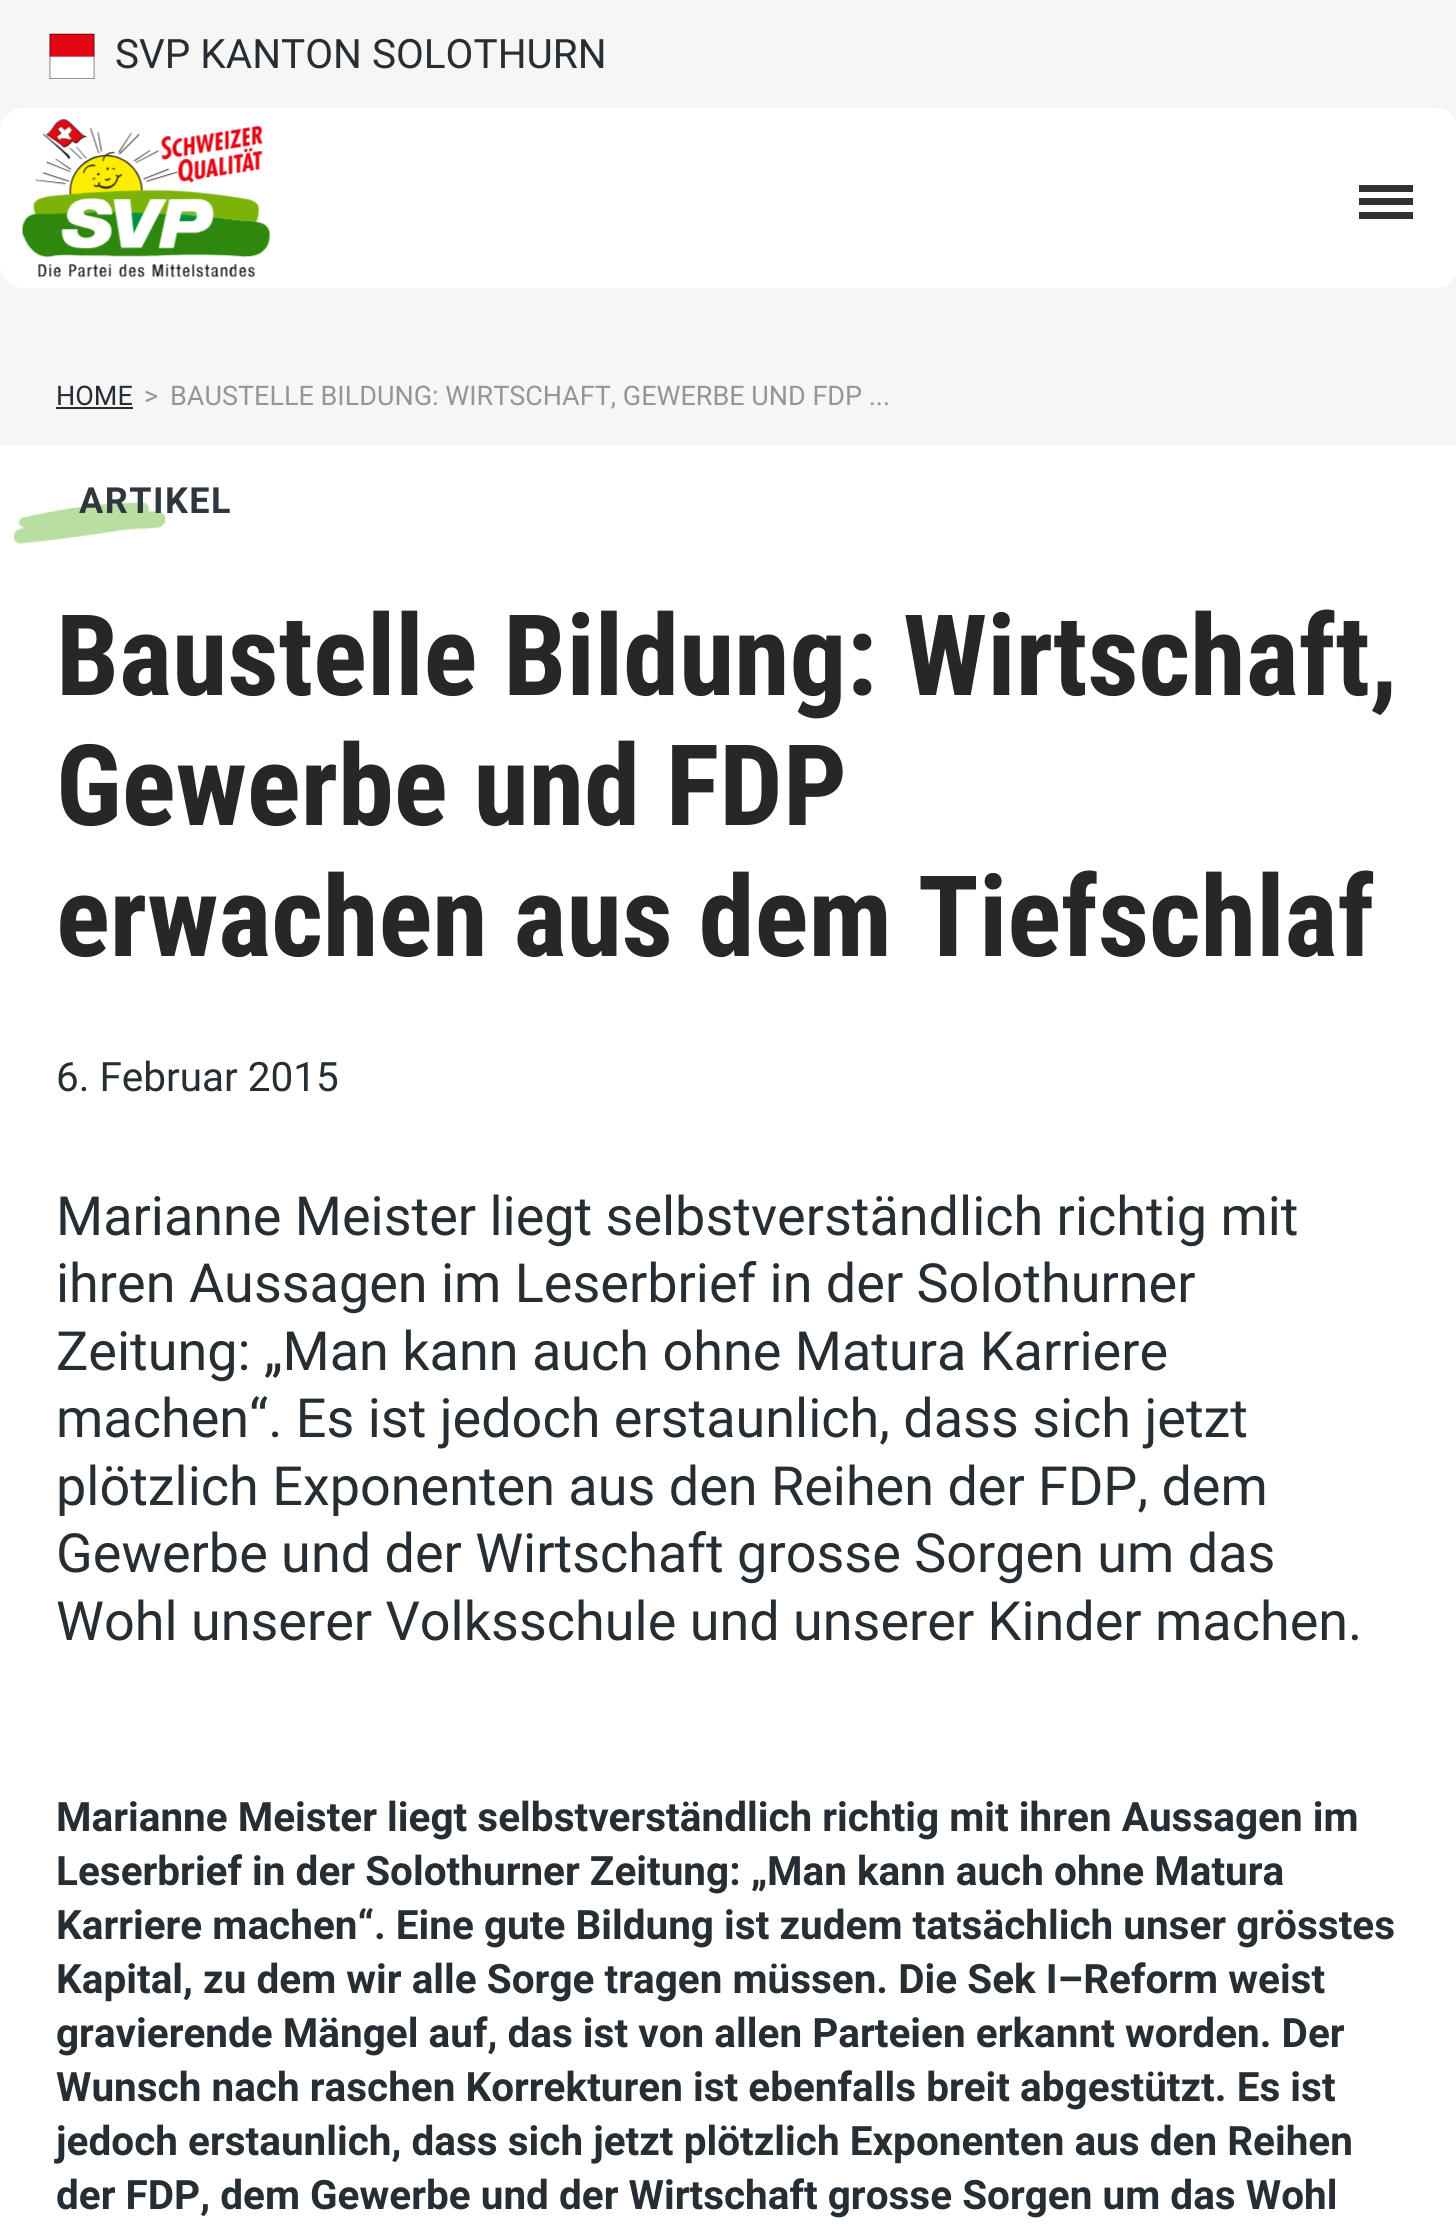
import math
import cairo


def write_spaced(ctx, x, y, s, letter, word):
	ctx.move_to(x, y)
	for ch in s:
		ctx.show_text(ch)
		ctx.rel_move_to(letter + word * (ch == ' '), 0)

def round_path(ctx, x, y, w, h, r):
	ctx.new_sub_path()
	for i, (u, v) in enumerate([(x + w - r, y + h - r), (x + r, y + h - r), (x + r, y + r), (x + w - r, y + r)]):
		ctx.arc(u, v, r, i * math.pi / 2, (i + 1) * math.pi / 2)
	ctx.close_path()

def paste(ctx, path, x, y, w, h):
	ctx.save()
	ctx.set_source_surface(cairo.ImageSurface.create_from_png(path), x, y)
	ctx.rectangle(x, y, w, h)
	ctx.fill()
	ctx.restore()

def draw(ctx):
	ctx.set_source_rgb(0.961, 0.961, 0.961)
	ctx.paint()
	paste(ctx, 'media/1.png', 49, 33, 46, 46)
	ctx.select_font_face('Roboto')
	ctx.set_font_size(40.5)
	ctx.set_source_rgb(0.149, 0.176, 0.2)
	ctx.move_to(115, 68)
	ctx.show_text('SVP KANTON SOLOTHURN')
	ctx.set_source_rgb(1, 1, 1)
	round_path(ctx, 0, 108, 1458, 180, 23)
	ctx.fill()
	paste(ctx, 'media/2.png', 22, 119, 249, 159)
	ctx.set_source_rgb(0.18, 0.196, 0.2)
	ctx.rectangle(1359, 198, 54, 7)
	ctx.rectangle(1359, 185, 54, 7)
	ctx.rectangle(1359, 212, 54, 7)
	ctx.fill()
	ctx.set_font_size(27)
	ctx.set_source_rgb(0.149, 0.176, 0.2)
	ctx.move_to(56, 405)
	ctx.show_text('HOME')
	ctx.rectangle(56, 407, 77, 2)
	ctx.fill()
	ctx.set_source_rgb(0.576, 0.588, 0.6)
	ctx.move_to(144, 405)
	ctx.show_text('>')
	ctx.move_to(170, 405)
	ctx.show_text('BAUSTELLE BILDUNG: WIRTSCHAFT, GEWERBE UND FDP ...')
	ctx.set_source_rgb(1, 1, 1)
	ctx.rectangle(0, 446, 1456, 1794)
	ctx.fill()
	paste(ctx, 'media/3.png', 13, 502, 153, 42)
	ctx.select_font_face('Roboto', cairo.FONT_SLANT_NORMAL, cairo.FONT_WEIGHT_BOLD)
	ctx.set_font_size(36)
	ctx.set_source_rgb(0.188, 0.212, 0.239)
	write_spaced(ctx, 79, 513, 'ARTIKEL', 1.5, 0)
	ctx.select_font_face('Roboto Condensed', cairo.FONT_SLANT_NORMAL, cairo.FONT_WEIGHT_BOLD)
	ctx.set_font_size(112.5)
	ctx.set_source_rgb(0.153, 0.153, 0.153)
	for x, y, s in [
		(56, 695, 'Baustelle Bildung: Wirtschaft,'),
		(56, 825, 'Gewerbe und FDP'),
		(56, 956, 'erwachen aus dem Tiefschlaf'),
	]:
		ctx.move_to(x, y)
		ctx.show_text(s)
	ctx.select_font_face('Roboto')
	ctx.set_font_size(40.5)
	ctx.set_source_rgb(0.149, 0.176, 0.2)
	ctx.move_to(56, 1091)
	ctx.show_text('6. Februar 2015')
	ctx.set_font_size(54)
	for x, y, s in [
		(56, 1235, 'Marianne Meister liegt selbstverständlich richtig mit'),
		(56, 1302, 'ihren Aussagen im Leserbrief in der Solothurner'),
		(56, 1370, 'Zeitung: „Man kann auch ohne Matura Karriere'),
		(56, 1437, 'machen“. Es ist jedoch erstaunlich, dass sich jetzt'),
		(56, 1505, 'plötzlich Exponenten aus den Reihen der FDP, dem'),
		(56, 1572, 'Gewerbe und der Wirtschaft grosse Sorgen um das'),
		(56, 1640, 'Wohl unserer Volksschule und unserer Kinder machen.'),
	]:
		ctx.move_to(x, y)
		ctx.show_text(s)
	ctx.select_font_face('Roboto', cairo.FONT_SLANT_NORMAL, cairo.FONT_WEIGHT_BOLD)
	ctx.set_font_size(40.5)
	for x, y, s in [
		(56, 1831, 'Marianne Meister liegt selbstverständlich richtig mit ihren Aussagen im'),
		(56, 1885, 'Leserbrief in der Solothurner Zeitung: „Man kann auch ohne Matura'),
		(56, 1939, 'Karriere machen“. Eine gute Bildung ist zudem tatsächlich unser grösstes'),
		(56, 1993, 'Kapital, zu dem wir alle Sorge tragen müssen. Die Sek I–Reform weist'),
		(56, 2047, 'gravierende Mängel auf, das ist von allen Parteien erkannt worden. Der'),
		(56, 2101, 'Wunsch nach raschen Korrekturen ist ebenfalls breit abgestützt. Es ist'),
		(56, 2155, 'jedoch erstaunlich, dass sich jetzt plötzlich Exponenten aus den Reihen'),
		(56, 2209, 'der FDP, dem Gewerbe und der Wirtschaft grosse Sorgen um das Wohl'),
	]:
		ctx.move_to(x, y)
		ctx.show_text(s)


surface = cairo.ImageSurface(cairo.FORMAT_RGB24, 1456, 2240)
ctx = cairo.Context(surface)
options = cairo.FontOptions()
options.set_hint_metrics(cairo.HINT_METRICS_OFF)
options.set_hint_style(cairo.HINT_STYLE_NONE)
ctx.set_font_options(options)
ctx.set_miter_limit(4)
draw(ctx)
surface.write_to_png('image.png')
